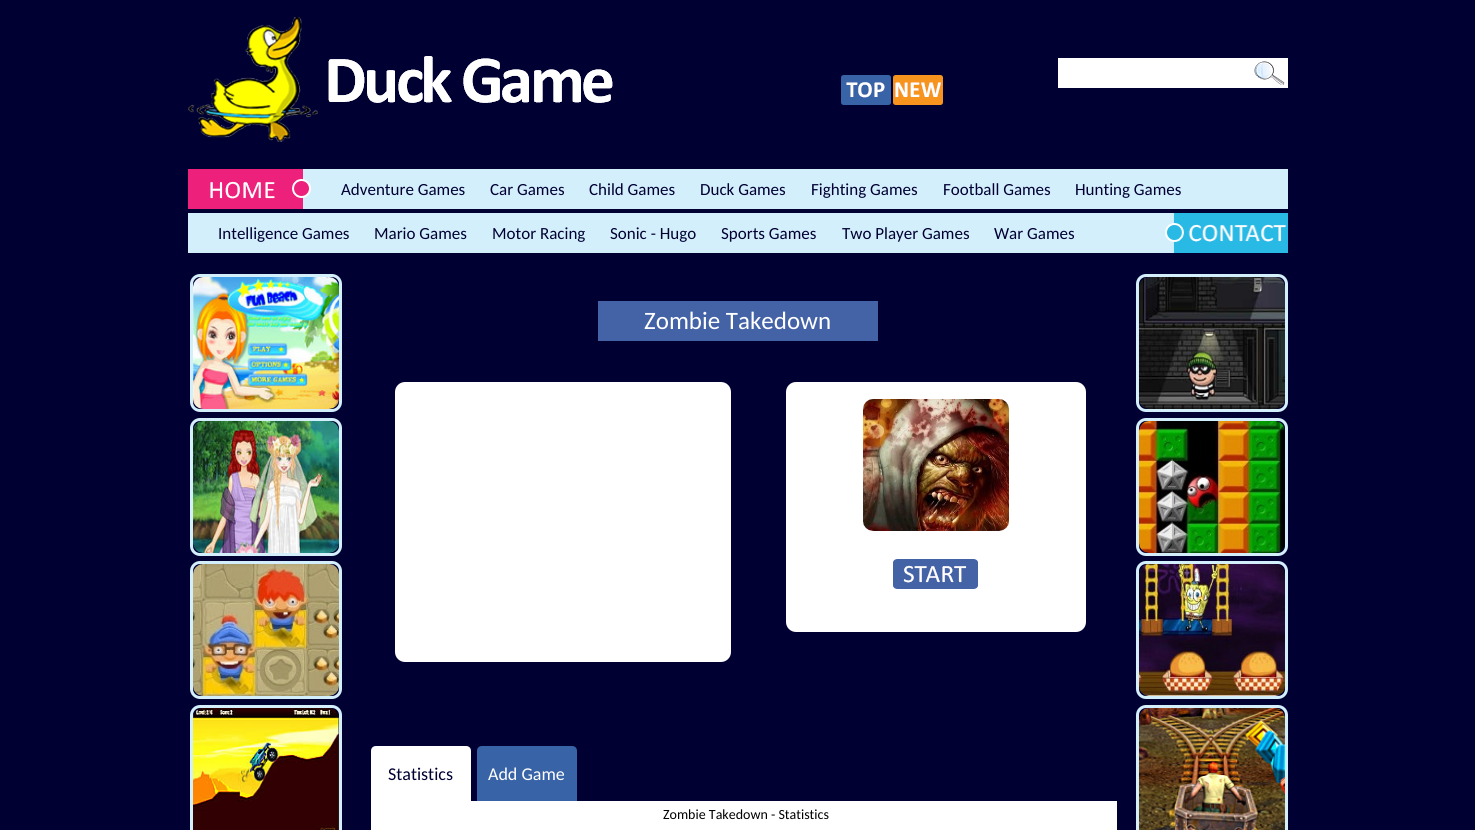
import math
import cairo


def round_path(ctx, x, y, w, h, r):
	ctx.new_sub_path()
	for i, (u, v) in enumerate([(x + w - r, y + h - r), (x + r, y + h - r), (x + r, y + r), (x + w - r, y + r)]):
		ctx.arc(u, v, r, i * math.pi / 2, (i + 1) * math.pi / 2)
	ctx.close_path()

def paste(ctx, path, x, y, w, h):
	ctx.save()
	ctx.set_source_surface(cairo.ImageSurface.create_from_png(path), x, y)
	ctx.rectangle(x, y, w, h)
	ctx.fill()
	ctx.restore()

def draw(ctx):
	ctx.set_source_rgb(0, 0, 0.2)
	ctx.paint()
	paste(ctx, 'media/1.png', 188, 17, 425, 125)
	paste(ctx, 'media/2.png', 188, 17, 425, 125)
	paste(ctx, 'media/3.png', 841, 75, 50, 30)
	paste(ctx, 'media/4.png', 893, 75, 50, 30)
	ctx.set_source_rgb(1, 1, 1)
	ctx.rectangle(1058, 58, 230, 30)
	ctx.fill()
	paste(ctx, 'media/5.png', 1254, 61, 31, 24)
	ctx.set_source_rgb(0.831, 0.937, 0.988)
	ctx.rectangle(303, 169, 985, 40)
	ctx.fill()
	paste(ctx, 'media/6.png', 188, 169, 123, 40)
	ctx.select_font_face('Carlito')
	ctx.set_font_size(17)
	ctx.set_source_rgb(0, 0, 0.2)
	for x, y, s in [
		(341, 195, 'Adventure Games'),
		(490, 195, 'Car Games'),
		(589, 195, 'Child Games'),
		(700, 195, 'Duck Games'),
		(811, 195, 'Fighting Games'),
		(943, 195, 'Football Games'),
		(1075, 195, 'Hunting Games'),
	]:
		ctx.move_to(x, y)
		ctx.show_text(s)
	ctx.set_source_rgb(0.831, 0.937, 0.988)
	ctx.rectangle(188, 213, 986, 40)
	ctx.fill()
	ctx.set_source_rgb(0, 0, 0.2)
	for x, y, s in [
		(218, 239, 'Intelligence Games'),
		(374, 239, 'Mario Games'),
		(492, 239, 'Motor Racing'),
		(610, 239, 'Sonic - Hugo'),
		(721, 239, 'Sports Games'),
		(842, 239, 'Two Player Games'),
		(994, 239, 'War Games'),
	]:
		ctx.move_to(x, y)
		ctx.show_text(s)
	paste(ctx, 'media/7.png', 1165, 213, 123, 40)
	round_path(ctx, 191.5, 275.5, 149, 135, 8.5)
	ctx.set_source_rgb(0.831, 0.937, 0.988)
	ctx.set_line_width(3)
	ctx.stroke()
	paste(ctx, 'media/8.png', 193, 277, 146, 132)
	round_path(ctx, 191.5, 419.5, 149, 135, 8.5)
	ctx.stroke()
	paste(ctx, 'media/9.png', 193, 421, 146, 132)
	round_path(ctx, 191.5, 562.5, 149, 135, 8.5)
	ctx.stroke()
	paste(ctx, 'media/10.png', 193, 564, 146, 132)
	round_path(ctx, 191.5, 706.5, 149, 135, 8.5)
	ctx.stroke()
	paste(ctx, 'media/11.png', 193, 708, 146, 122)
	ctx.set_source_rgb(0.267, 0.388, 0.655)
	ctx.rectangle(598, 301, 280, 40)
	ctx.fill()
	ctx.set_font_size(25)
	ctx.set_source_rgb(1, 1, 1)
	ctx.move_to(644, 329)
	ctx.show_text('Zombie Takedown')
	round_path(ctx, 395, 382, 336, 280, 10)
	ctx.fill()
	round_path(ctx, 786, 382, 300, 250, 10)
	ctx.fill()
	paste(ctx, 'media/12.png', 863, 399, 146, 132)
	paste(ctx, 'media/13.png', 893, 559, 85, 30)
	ctx.new_path()
	ctx.move_to(376, 746)
	ctx.line_to(466, 746)
	ctx.curve_to(469, 746, 471, 748, 471, 751)
	ctx.line_to(471, 801)
	ctx.line_to(371, 801)
	ctx.line_to(371, 751)
	ctx.curve_to(371, 748, 373, 746, 376, 746)
	ctx.close_path()
	ctx.fill()
	ctx.set_font_size(18)
	ctx.set_source_rgb(0, 0, 0.2)
	ctx.move_to(388, 780)
	ctx.show_text('Statistics')
	ctx.set_source_rgb(0.224, 0.388, 0.655)
	ctx.new_path()
	ctx.move_to(482, 746)
	ctx.line_to(572, 746)
	ctx.curve_to(575, 746, 577, 748, 577, 751)
	ctx.line_to(577, 801)
	ctx.line_to(477, 801)
	ctx.line_to(477, 751)
	ctx.curve_to(477, 748, 479, 746, 482, 746)
	ctx.close_path()
	ctx.fill()
	ctx.set_source_rgb(1, 1, 1)
	ctx.move_to(488, 780)
	ctx.show_text('Add Game')
	ctx.rectangle(371, 801, 746, 29)
	ctx.fill()
	ctx.set_font_size(14)
	ctx.set_source_rgb(0, 0, 0)
	ctx.move_to(663, 819)
	ctx.show_text('Zombie Takedown - Statistics')
	round_path(ctx, 1137.5, 275.5, 149, 135, 8.5)
	ctx.set_source_rgb(0.831, 0.937, 0.988)
	ctx.stroke()
	paste(ctx, 'media/14.png', 1139, 277, 146, 132)
	round_path(ctx, 1137.5, 419.5, 149, 135, 8.5)
	ctx.stroke()
	paste(ctx, 'media/15.png', 1139, 421, 146, 132)
	round_path(ctx, 1137.5, 562.5, 149, 135, 8.5)
	ctx.stroke()
	paste(ctx, 'media/16.png', 1139, 564, 146, 132)
	round_path(ctx, 1137.5, 706.5, 149, 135, 8.5)
	ctx.stroke()
	paste(ctx, 'media/17.png', 1139, 708, 146, 122)


surface = cairo.ImageSurface(cairo.FORMAT_RGB24, 1475, 830)
ctx = cairo.Context(surface)
options = cairo.FontOptions()
options.set_hint_metrics(cairo.HINT_METRICS_OFF)
options.set_hint_style(cairo.HINT_STYLE_NONE)
ctx.set_font_options(options)
ctx.set_miter_limit(4)
draw(ctx)
surface.write_to_png('image.png')
